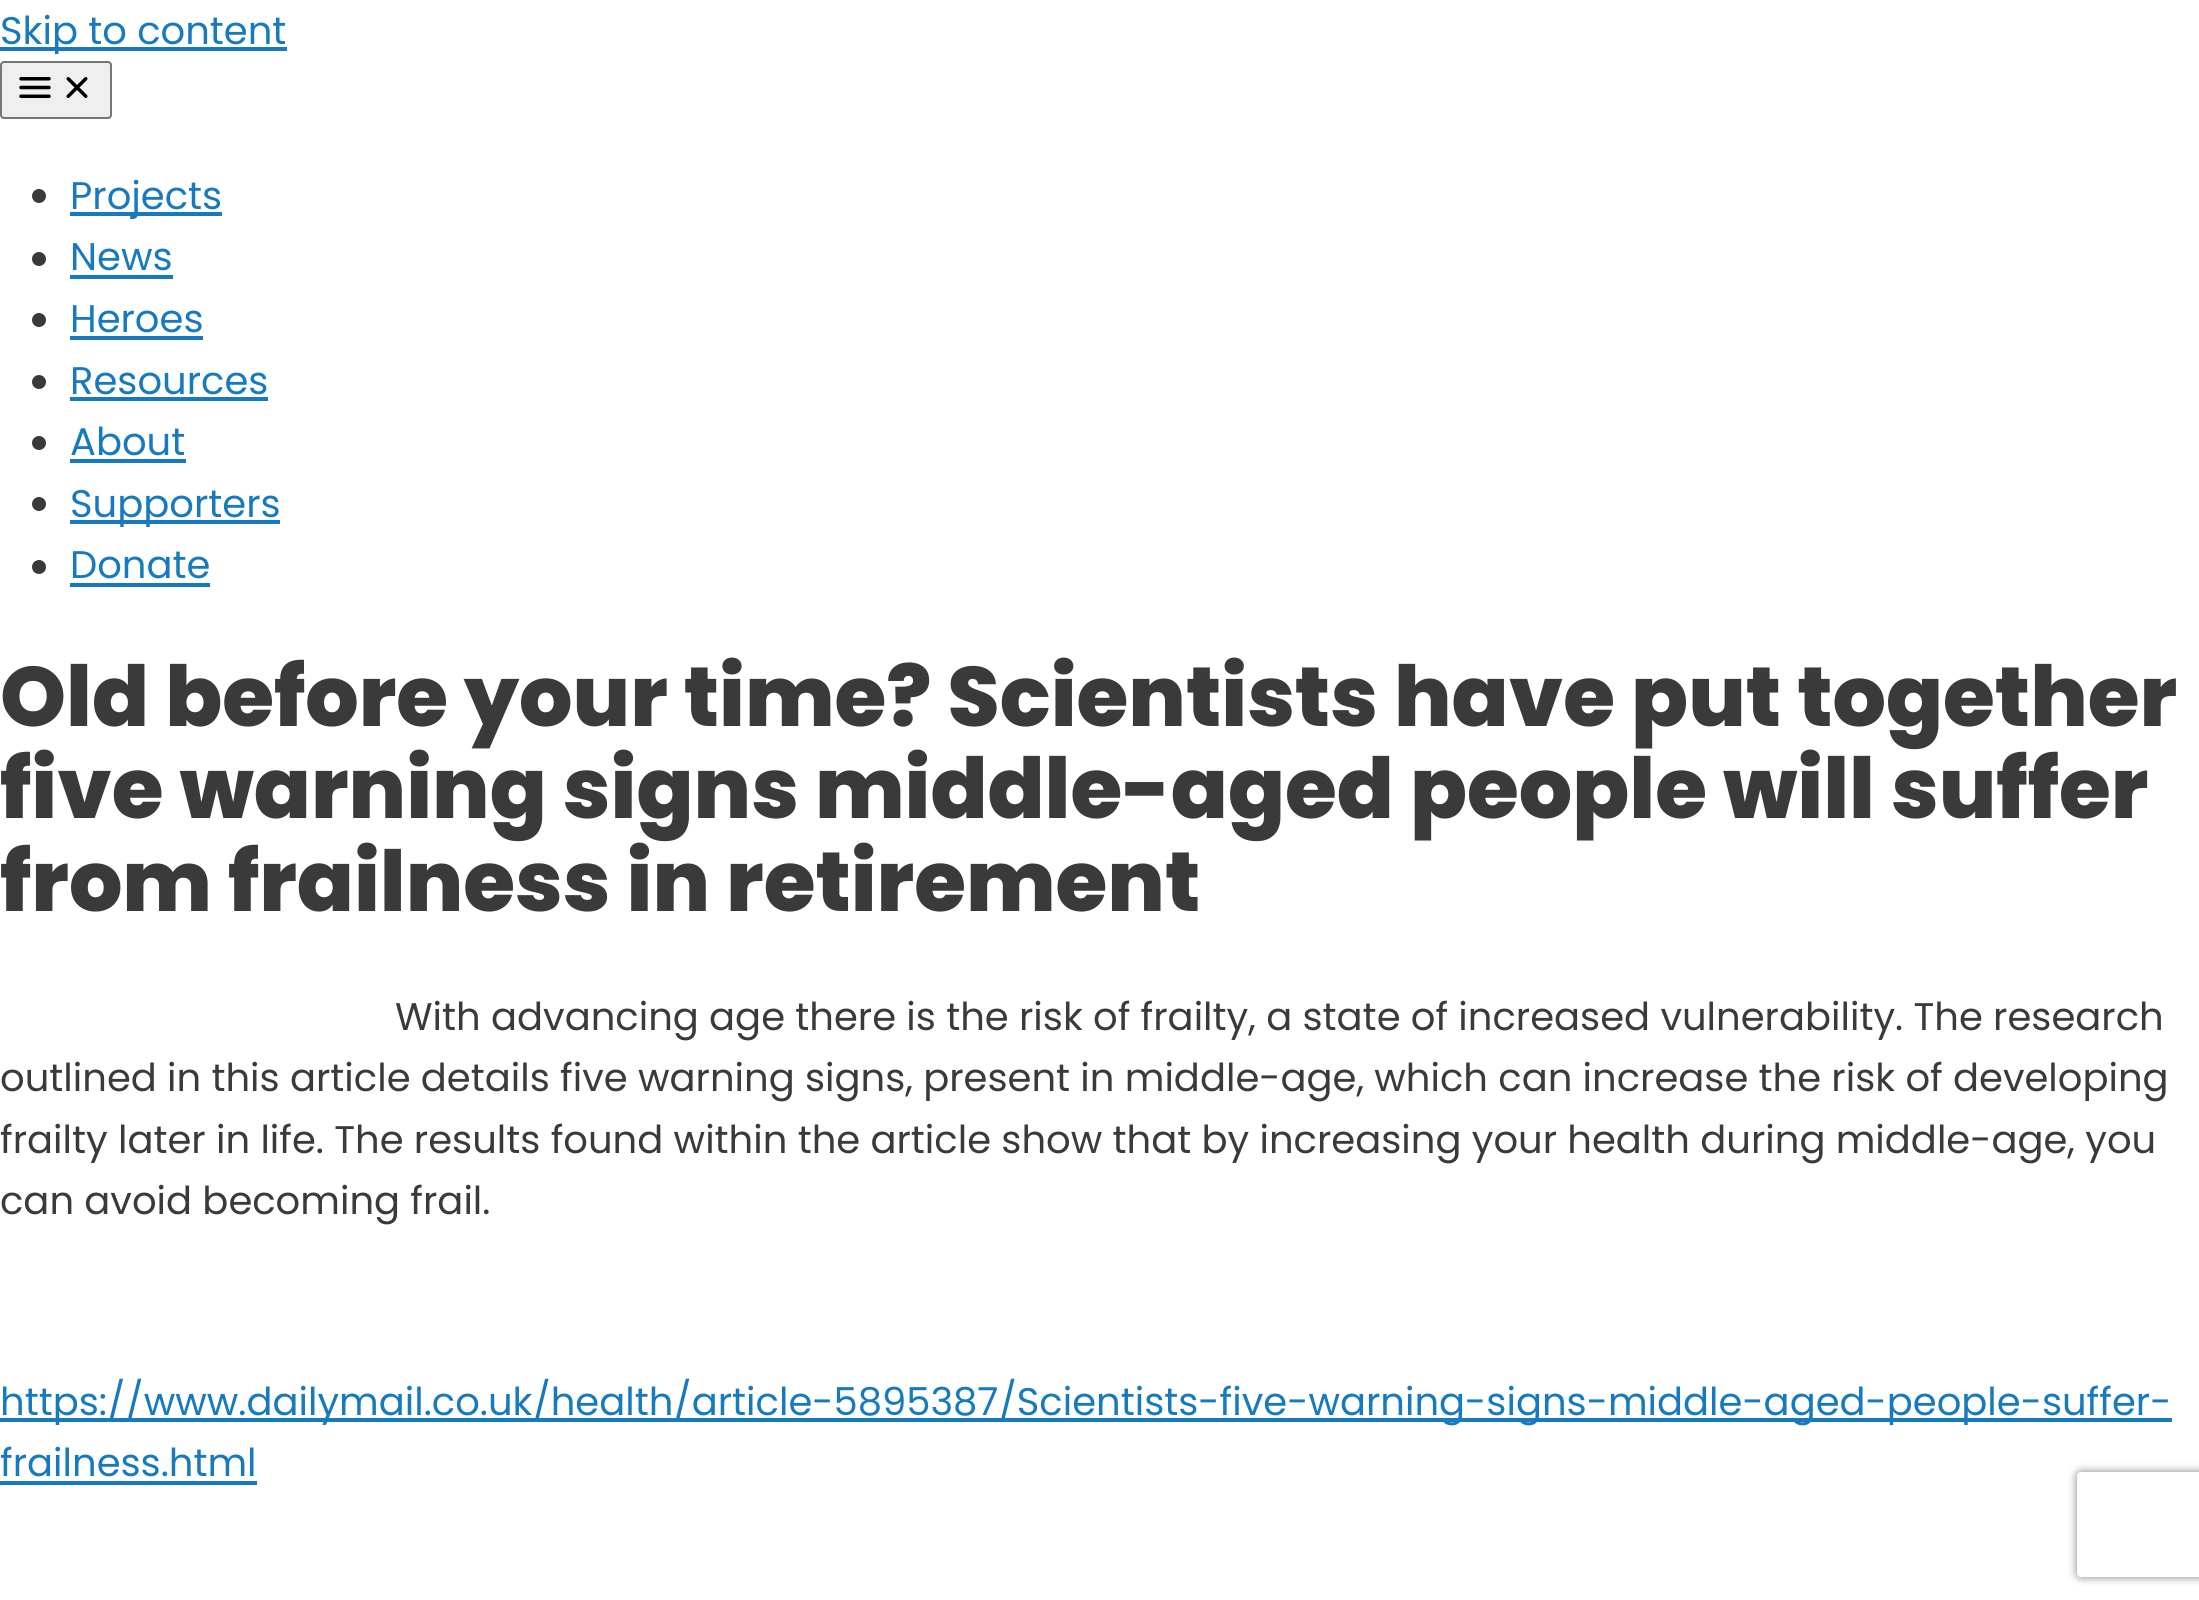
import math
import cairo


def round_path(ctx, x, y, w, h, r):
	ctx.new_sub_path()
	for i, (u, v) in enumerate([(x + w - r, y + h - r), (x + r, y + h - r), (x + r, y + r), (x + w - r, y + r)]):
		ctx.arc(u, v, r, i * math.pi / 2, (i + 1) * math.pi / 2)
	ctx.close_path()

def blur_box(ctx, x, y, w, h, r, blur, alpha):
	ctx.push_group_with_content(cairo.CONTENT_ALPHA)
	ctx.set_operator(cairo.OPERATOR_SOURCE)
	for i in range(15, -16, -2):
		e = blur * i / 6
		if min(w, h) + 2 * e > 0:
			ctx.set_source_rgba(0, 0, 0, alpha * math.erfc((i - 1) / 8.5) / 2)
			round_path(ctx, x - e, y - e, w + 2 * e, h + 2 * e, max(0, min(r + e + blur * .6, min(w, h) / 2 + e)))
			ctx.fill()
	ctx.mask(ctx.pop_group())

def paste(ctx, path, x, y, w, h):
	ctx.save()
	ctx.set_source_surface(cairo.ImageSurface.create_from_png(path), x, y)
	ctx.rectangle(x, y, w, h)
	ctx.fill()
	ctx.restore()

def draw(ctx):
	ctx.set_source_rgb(1, 1, 1)
	ctx.paint()
	ctx.set_source_rgb(0.09, 0.478, 0.745)
	ctx.rectangle(0, 47, 287, 4)
	ctx.fill()
	ctx.select_font_face('Poppins')
	ctx.set_font_size(38.5)
	ctx.move_to(0, 44)
	ctx.show_text('Skip to content')
	ctx.set_source_rgb(0.937, 0.937, 0.937)
	round_path(ctx, 1, 62, 110, 56, 3)
	ctx.fill_preserve()
	ctx.set_source_rgb(0.463, 0.463, 0.463)
	ctx.stroke()
	paste(ctx, 'media/1.png', 19, 77, 32, 21)
	paste(ctx, 'media/2.png', 66, 77, 22, 21)
	ctx.set_source_rgb(0.227, 0.227, 0.227)
	ctx.arc(39, 196, 7, 0, 2 * math.pi)
	ctx.fill()
	ctx.set_source_rgb(0.09, 0.478, 0.745)
	ctx.rectangle(70, 212, 152, 4)
	ctx.fill()
	ctx.move_to(70, 209)
	ctx.show_text('Projects')
	ctx.set_source_rgb(0.227, 0.227, 0.227)
	ctx.new_path()
	ctx.arc(39, 259, 7, 0, 2 * math.pi)
	ctx.fill()
	ctx.set_source_rgb(0.09, 0.478, 0.745)
	ctx.move_to(70, 270)
	ctx.show_text('News')
	ctx.rectangle(70, 275, 103, 4)
	ctx.fill()
	ctx.set_source_rgb(0.227, 0.227, 0.227)
	ctx.arc(39, 320, 7, 0, 2 * math.pi)
	ctx.fill()
	ctx.set_source_rgb(0.09, 0.478, 0.745)
	ctx.move_to(70, 332)
	ctx.show_text('Heroes')
	ctx.rectangle(70, 336, 133, 4)
	ctx.fill()
	ctx.set_source_rgb(0.227, 0.227, 0.227)
	ctx.arc(39, 382, 7, 0, 2 * math.pi)
	ctx.fill()
	ctx.set_source_rgb(0.09, 0.478, 0.745)
	ctx.move_to(70, 394)
	ctx.show_text('Resources')
	ctx.rectangle(70, 397, 198, 4)
	ctx.fill()
	ctx.set_source_rgb(0.227, 0.227, 0.227)
	ctx.arc(39, 443, 7, 0, 2 * math.pi)
	ctx.fill()
	ctx.set_source_rgb(0.09, 0.478, 0.745)
	ctx.move_to(70, 455)
	ctx.show_text('About')
	ctx.rectangle(70, 459, 116, 4)
	ctx.fill()
	ctx.set_source_rgb(0.227, 0.227, 0.227)
	ctx.arc(39, 504, 7, 0, 2 * math.pi)
	ctx.fill()
	ctx.set_source_rgb(0.09, 0.478, 0.745)
	ctx.rectangle(70, 520, 210, 4)
	ctx.fill()
	ctx.move_to(70, 517)
	ctx.show_text('Supporters')
	ctx.set_source_rgb(0.227, 0.227, 0.227)
	ctx.new_path()
	ctx.arc(39, 567, 7, 0, 2 * math.pi)
	ctx.fill()
	ctx.set_source_rgb(0.09, 0.478, 0.745)
	ctx.move_to(70, 578)
	ctx.show_text('Donate')
	ctx.rectangle(70, 583, 140, 4)
	ctx.fill()
	ctx.select_font_face('Poppins ExtraBold')
	ctx.set_font_size(84)
	ctx.set_source_rgb(0.227, 0.227, 0.227)
	for x, y, s in [
		(0, 726, 'Old before your time? Scientists have put together'),
		(0, 818, 'five warning signs middle-aged people will suffer'),
		(0, 911, 'from frailness in retirement'),
	]:
		ctx.move_to(x, y)
		ctx.show_text(s)
	ctx.select_font_face('Poppins')
	ctx.set_font_size(38.5)
	for x, y, s in [
		(395, 1030, 'With advancing age there is the risk of frailty, a state of increased vulnerability. The research'),
		(0, 1091, 'outlined in this article details five warning signs, present in middle-age, which can increase the risk of developing'),
		(0, 1153, 'frailty later in life. The results found within the article show that by increasing your health during middle-age, you'),
		(0, 1214, 'can avoid becoming frail.'),
	]:
		ctx.move_to(x, y)
		ctx.show_text(s)
	ctx.set_source_rgb(0.09, 0.478, 0.745)
	ctx.rectangle(0, 1418, 2172, 4)
	ctx.fill()
	ctx.move_to(0, 1415)
	ctx.show_text('https://www.dailymail.co.uk/health/article-5895387/Scientists-five-warning-signs-middle-aged-people-suffer-')
	ctx.move_to(0, 1476)
	ctx.show_text('frailness.html')
	ctx.rectangle(0, 1481, 257, 4)
	ctx.fill()
	ctx.save()
	ctx.set_fill_rule(cairo.FILL_RULE_EVEN_ODD)
	ctx.new_path()
	ctx.move_to(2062, 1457)
	ctx.line_to(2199, 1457)
	ctx.line_to(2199, 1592)
	ctx.line_to(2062, 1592)
	ctx.close_path()
	ctx.move_to(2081, 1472)
	ctx.line_to(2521, 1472)
	ctx.curve_to(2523, 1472, 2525, 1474, 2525, 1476)
	ctx.line_to(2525, 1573)
	ctx.curve_to(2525, 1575, 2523, 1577, 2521, 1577)
	ctx.line_to(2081, 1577)
	ctx.curve_to(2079, 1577, 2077, 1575, 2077, 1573)
	ctx.line_to(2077, 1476)
	ctx.curve_to(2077, 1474, 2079, 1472, 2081, 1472)
	ctx.close_path()
	ctx.clip()
	ctx.set_source_rgb(0.502, 0.502, 0.502)
	blur_box(ctx, 2077, 1472, 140, 105, 4, 4.5, 1)
	ctx.restore()


surface = cairo.ImageSurface(cairo.FORMAT_RGB24, 2199, 1600)
ctx = cairo.Context(surface)
options = cairo.FontOptions()
options.set_hint_metrics(cairo.HINT_METRICS_OFF)
options.set_hint_style(cairo.HINT_STYLE_NONE)
ctx.set_font_options(options)
ctx.set_miter_limit(4)
draw(ctx)
surface.write_to_png('image.png')
